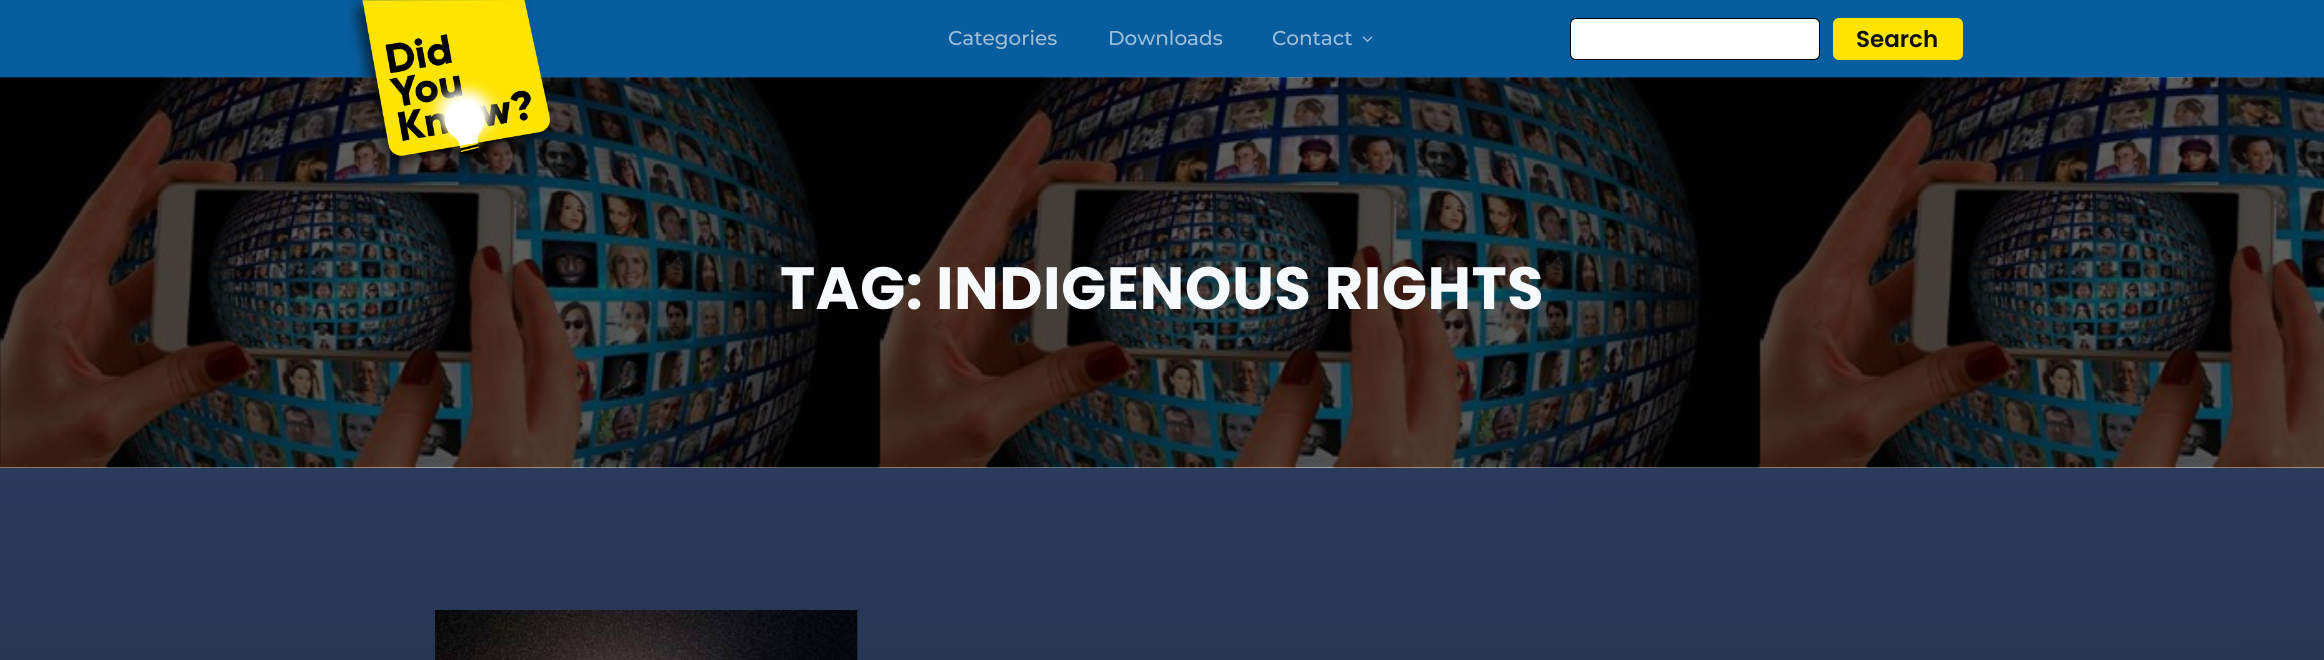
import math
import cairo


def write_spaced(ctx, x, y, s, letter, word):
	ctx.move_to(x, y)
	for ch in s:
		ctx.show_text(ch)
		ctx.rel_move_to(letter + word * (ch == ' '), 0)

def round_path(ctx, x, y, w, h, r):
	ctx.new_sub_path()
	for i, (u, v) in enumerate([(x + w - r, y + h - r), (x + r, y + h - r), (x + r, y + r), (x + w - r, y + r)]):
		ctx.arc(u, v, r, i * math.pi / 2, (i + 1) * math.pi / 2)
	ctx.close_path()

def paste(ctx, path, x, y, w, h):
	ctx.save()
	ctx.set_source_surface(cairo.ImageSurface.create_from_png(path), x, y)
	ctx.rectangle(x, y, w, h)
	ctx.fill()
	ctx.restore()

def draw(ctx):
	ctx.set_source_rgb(0.988, 0.988, 0.988)
	ctx.paint()
	ctx.set_source_rgb(0.035, 0.365, 0.62)
	ctx.rectangle(0, 0, 2324, 78)
	ctx.fill()
	paste(ctx, 'media/3.png', 0, 77, 2324, 391)
	paste(ctx, 'media/1.png', 347, 0, 204, 170)
	ctx.select_font_face('Montserrat Medium')
	ctx.set_font_size(20)
	ctx.set_source_rgb(0.616, 0.745, 0.847)
	for x, y, s in [
		(948, 45, 'Categories'),
		(1108, 45, 'Downloads'),
		(1272, 45, 'Contact'),
	]:
		ctx.move_to(x, y)
		ctx.show_text(s)
	paste(ctx, 'media/2.png', 1362, 36, 11, 6)
	ctx.set_source_rgb(1, 1, 1)
	round_path(ctx, 1570.5, 18.5, 249, 41, 5.5)
	ctx.fill_preserve()
	ctx.set_source_rgb(0, 0, 0)
	ctx.set_line_width(1)
	ctx.stroke()
	ctx.set_source_rgb(1, 0.894, 0)
	round_path(ctx, 1833, 18, 130, 42, 6)
	ctx.fill()
	ctx.select_font_face('Poppins SemiBold')
	ctx.set_font_size(23)
	ctx.set_source_rgb(0.067, 0.067, 0.067)
	ctx.move_to(1856, 47)
	ctx.show_text('Search')
	ctx.select_font_face('Poppins', cairo.FONT_SLANT_NORMAL, cairo.FONT_WEIGHT_BOLD)
	ctx.set_font_size(59.6)
	ctx.set_source_rgb(0.965, 0.98, 0.992)
	write_spaced(ctx, 780, 309, 'TAG: INDIGENOUS RIGHTS', 0.4, 0)
	gradient = cairo.LinearGradient(1162, 467, 1163, 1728)
	gradient.add_color_stop_rgba(0, 0.165, 0.231, 0.357, 1)
	gradient.add_color_stop_rgba(1, 0.094, 0.106, 0.145, 1)
	ctx.set_source(gradient)
	ctx.rectangle(0, 468, 2324, 192)
	ctx.fill()
	paste(ctx, 'media/4.png', 435, 610, 423, 50)


surface = cairo.ImageSurface(cairo.FORMAT_RGB24, 2324, 660)
ctx = cairo.Context(surface)
options = cairo.FontOptions()
options.set_hint_metrics(cairo.HINT_METRICS_OFF)
options.set_hint_style(cairo.HINT_STYLE_NONE)
ctx.set_font_options(options)
ctx.set_miter_limit(4)
draw(ctx)
surface.write_to_png('image.png')
